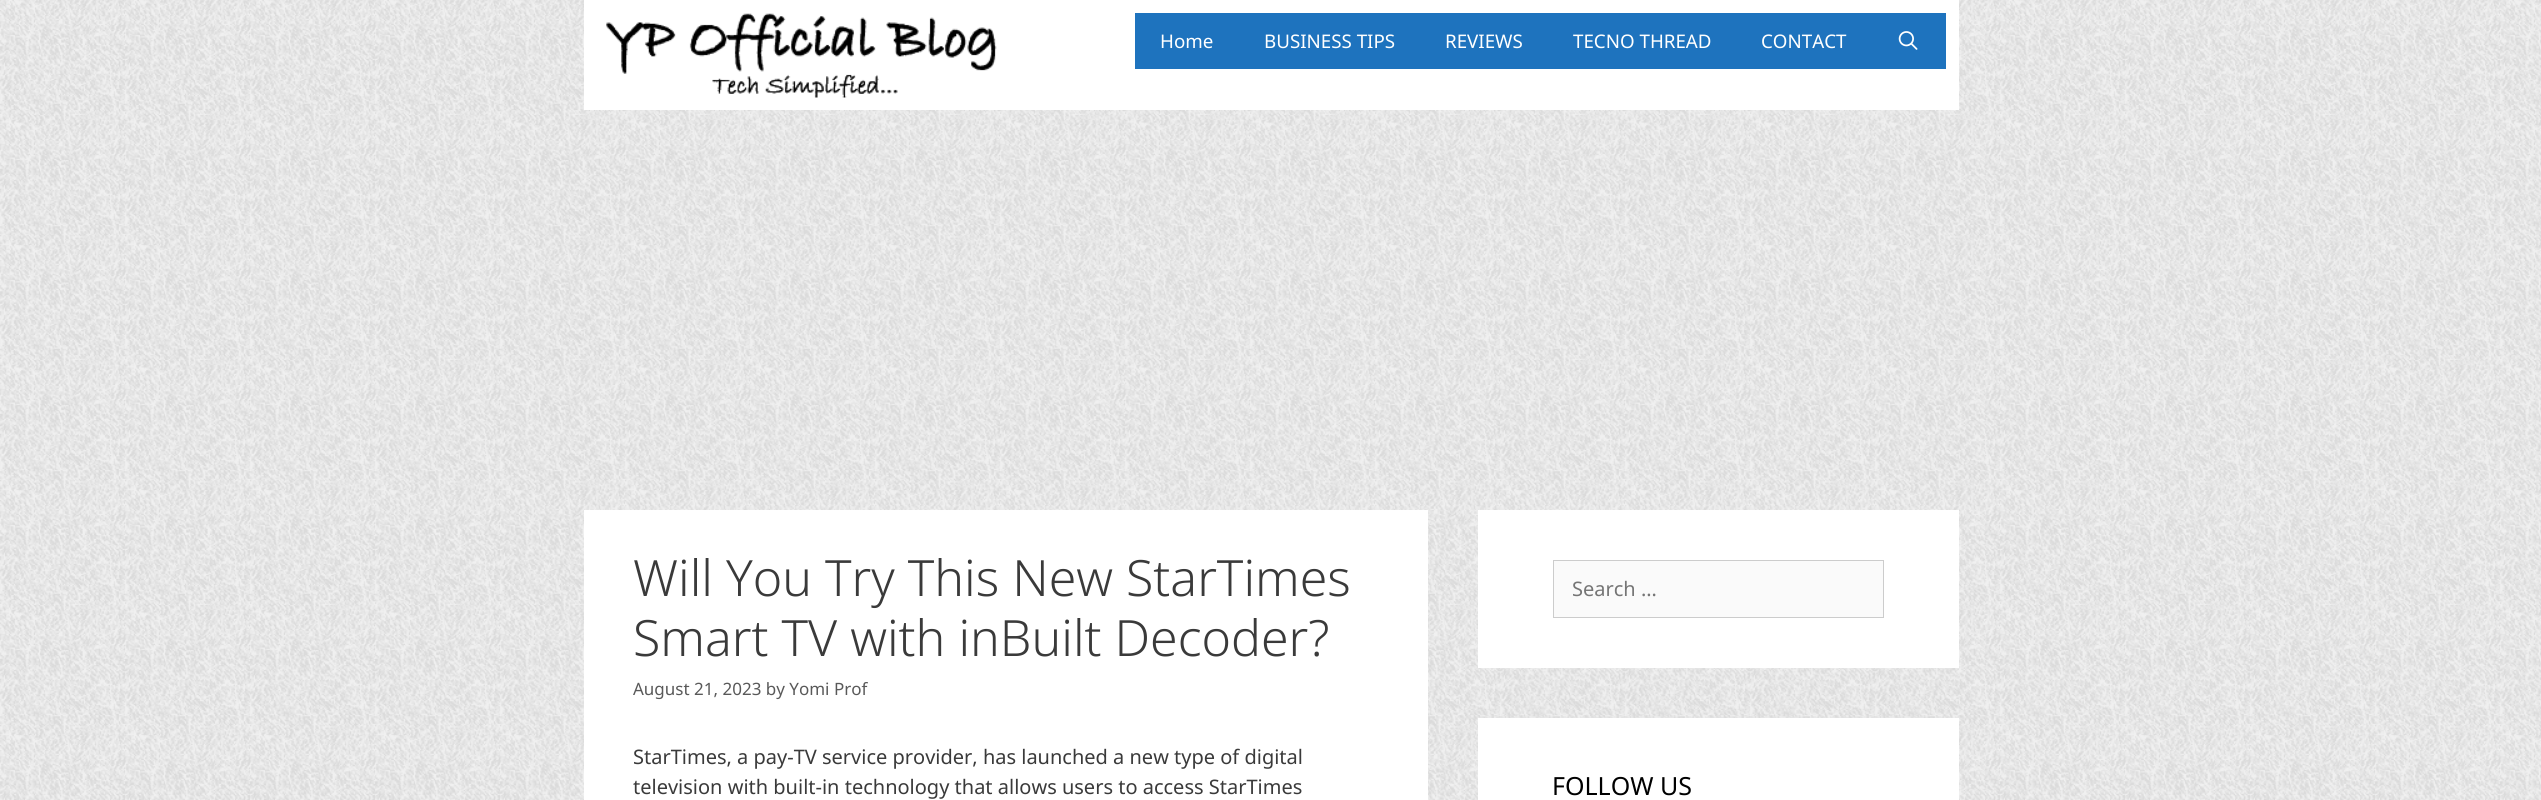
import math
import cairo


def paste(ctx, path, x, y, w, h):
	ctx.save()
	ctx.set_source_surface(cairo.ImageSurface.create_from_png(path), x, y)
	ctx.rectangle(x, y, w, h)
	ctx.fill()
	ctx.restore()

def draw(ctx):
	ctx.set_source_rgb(1, 1, 1)
	ctx.paint()
	paste(ctx, 'media/1.png', 0, 0, 2541, 800)
	ctx.set_source_rgb(1, 1, 1)
	ctx.rectangle(584, 0, 1375, 110)
	ctx.fill()
	paste(ctx, 'media/2.png', 606, 13, 391, 85)
	ctx.set_source_rgb(0.118, 0.451, 0.745)
	ctx.rectangle(1135, 13, 811, 56)
	ctx.fill()
	ctx.select_font_face('Noto Sans')
	ctx.set_font_size(18.75)
	ctx.set_source_rgb(1, 1, 1)
	for x, y, s in [
		(1160, 48, 'Home'),
		(1264, 48, 'BUSINESS TIPS'),
		(1445, 48, 'REVIEWS'),
		(1573, 48, 'TECNO THREAD'),
		(1761, 48, 'CONTACT'),
	]:
		ctx.move_to(x, y)
		ctx.show_text(s)
	paste(ctx, 'media/3.png', 1898, 31, 20, 19)
	ctx.rectangle(584, 510, 844, 290)
	ctx.fill()
	ctx.select_font_face('Noto Sans Light')
	ctx.set_font_size(50)
	ctx.set_source_rgb(0.227, 0.227, 0.227)
	ctx.move_to(633, 596)
	ctx.show_text('Will You Try This New StarTimes')
	ctx.move_to(633, 656)
	ctx.show_text('Smart TV with inBuilt Decoder?')
	ctx.select_font_face('Noto Sans')
	ctx.set_font_size(17)
	ctx.set_source_rgb(0.349, 0.349, 0.349)
	ctx.move_to(633, 695)
	ctx.show_text('August 21, 2023 by Yomi Prof')
	ctx.set_font_size(20)
	ctx.set_source_rgb(0.227, 0.227, 0.227)
	ctx.move_to(633, 764)
	ctx.show_text('StarTimes, a pay-TV service provider, has launched a new type of digital')
	ctx.move_to(633, 794)
	ctx.show_text('television with built-in technology that allows users to access StarTimes')
	ctx.set_source_rgb(1, 1, 1)
	ctx.rectangle(1478, 510, 481, 158)
	ctx.fill()
	ctx.set_source_rgb(0.98, 0.98, 0.98)
	ctx.rectangle(1553.5, 560.5, 330, 57)
	ctx.fill_preserve()
	ctx.set_source_rgb(0.8, 0.8, 0.8)
	ctx.set_line_width(1)
	ctx.stroke()
	ctx.set_source_rgb(0.459, 0.459, 0.459)
	ctx.move_to(1572, 596)
	ctx.show_text('Search …')
	ctx.set_source_rgb(1, 1, 1)
	ctx.rectangle(1478, 718, 481, 82)
	ctx.fill()
	ctx.set_font_size(25)
	ctx.set_source_rgb(0, 0, 0)
	ctx.move_to(1552, 795)
	ctx.show_text('FOLLOW US')


surface = cairo.ImageSurface(cairo.FORMAT_RGB24, 2541, 800)
ctx = cairo.Context(surface)
options = cairo.FontOptions()
options.set_hint_metrics(cairo.HINT_METRICS_OFF)
options.set_hint_style(cairo.HINT_STYLE_NONE)
ctx.set_font_options(options)
ctx.set_miter_limit(4)
draw(ctx)
surface.write_to_png('image.png')
